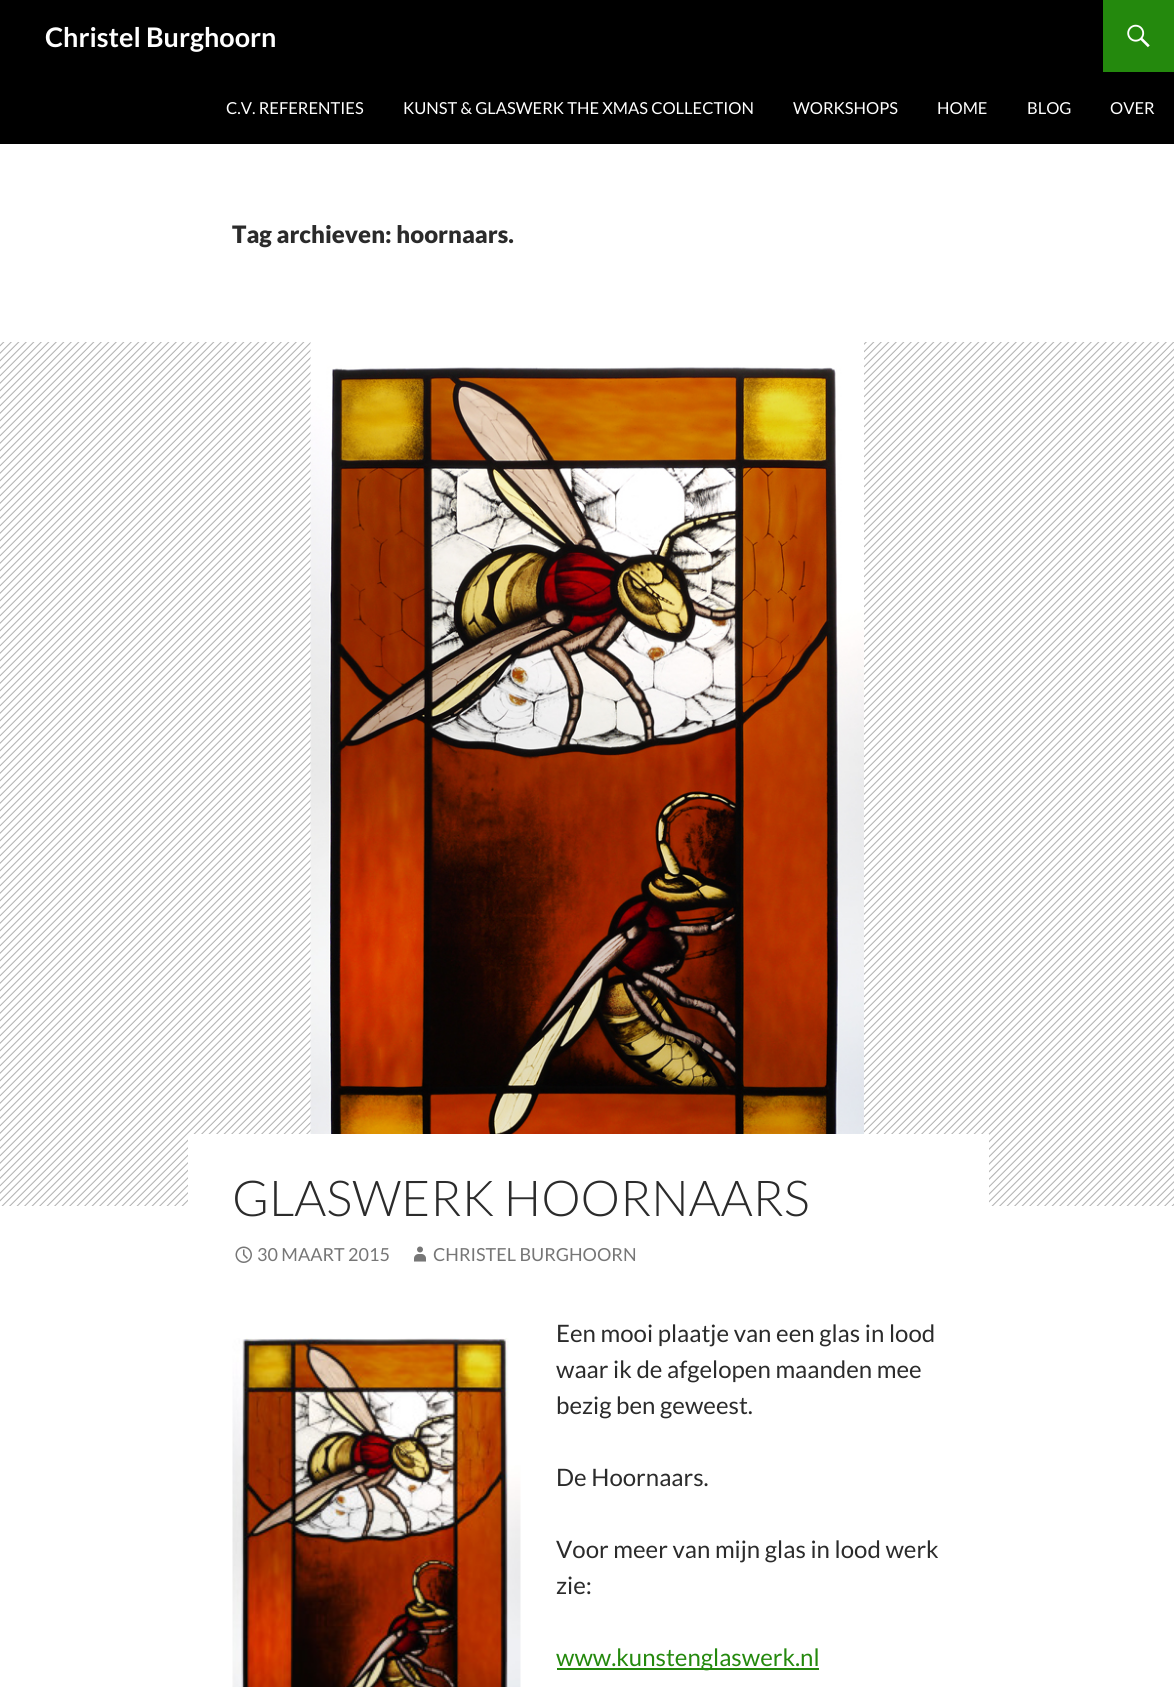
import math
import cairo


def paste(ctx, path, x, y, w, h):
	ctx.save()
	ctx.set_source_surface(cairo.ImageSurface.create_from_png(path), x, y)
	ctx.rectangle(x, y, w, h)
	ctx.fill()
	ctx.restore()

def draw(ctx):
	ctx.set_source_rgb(1, 1, 1)
	ctx.paint()
	ctx.set_source_rgb(0, 0, 0)
	ctx.rectangle(0, 0, 1174, 144)
	ctx.fill()
	ctx.select_font_face('Lato', cairo.FONT_SLANT_NORMAL, cairo.FONT_WEIGHT_BOLD)
	ctx.set_font_size(27)
	ctx.set_source_rgb(1, 1, 1)
	ctx.move_to(45, 47)
	ctx.show_text('Christel Burghoorn')
	ctx.set_source_rgb(0.141, 0.537, 0.051)
	ctx.rectangle(1103, 0, 71, 72)
	ctx.fill()
	paste(ctx, 'media/1.png', 1127, 24, 23, 24)
	ctx.select_font_face('Lato')
	ctx.set_font_size(16.5)
	ctx.set_source_rgb(1, 1, 1)
	for x, y, s in [
		(226, 114, 'C.V. REFERENTIES'),
		(403, 114, 'KUNST & GLASWERK THE XMAS COLLECTION'),
		(793, 114, 'WORKSHOPS'),
		(937, 114, 'HOME'),
		(1027, 114, 'BLOG'),
		(1110, 114, 'OVER'),
	]:
		ctx.move_to(x, y)
		ctx.show_text(s)
	ctx.select_font_face('Lato Black')
	ctx.set_font_size(24)
	ctx.set_source_rgb(0.169, 0.169, 0.169)
	ctx.move_to(232, 243)
	ctx.show_text('Tag archieven: hoornaars.')
	ctx.set_source_rgb(0.698, 0.698, 0.698)
	ctx.rectangle(0, 342, 1174, 864)
	ctx.fill()
	paste(ctx, 'media/2.png', 0, 342, 1174, 864)
	paste(ctx, 'media/3.png', 310, 342, 554, 792)
	ctx.set_source_rgb(1, 1, 1)
	ctx.rectangle(188, 1134, 801, 72)
	ctx.fill()
	ctx.select_font_face('Lato Light')
	ctx.set_font_size(49.5)
	ctx.set_source_rgb(0.169, 0.169, 0.169)
	ctx.move_to(232, 1216)
	ctx.show_text('GLASWERK HOORNAARS')
	paste(ctx, 'media/4.png', 235, 1246, 17, 17)
	ctx.select_font_face('Lato')
	ctx.set_font_size(18)
	ctx.set_source_rgb(0.463, 0.463, 0.463)
	ctx.move_to(257, 1261)
	ctx.show_text('30 MAART 2015')
	paste(ctx, 'media/5.png', 414, 1246, 12, 16)
	ctx.move_to(433, 1261)
	ctx.show_text('CHRISTEL BURGHOORN')
	ctx.set_font_size(24)
	ctx.set_source_rgb(0.169, 0.169, 0.169)
	ctx.move_to(556, 1342)
	ctx.show_text('Een mooi plaatje van een glas in lood')
	paste(ctx, 'media/6.png', 232, 1338, 289, 349)
	for x, y, s in [
		(556, 1378, 'waar ik de afgelopen maanden mee'),
		(556, 1414, 'bezig ben geweest.'),
		(556, 1486, 'De Hoornaars.'),
		(556, 1558, 'Voor meer van mijn glas in lood werk'),
		(556, 1594, 'zie:'),
	]:
		ctx.move_to(x, y)
		ctx.show_text(s)
	ctx.set_source_rgb(0.141, 0.537, 0.051)
	ctx.rectangle(557, 1668, 262, 2)
	ctx.fill()
	ctx.move_to(556, 1666)
	ctx.show_text('www.kunstenglaswerk.nl')


surface = cairo.ImageSurface(cairo.FORMAT_RGB24, 1174, 1687)
ctx = cairo.Context(surface)
options = cairo.FontOptions()
options.set_hint_metrics(cairo.HINT_METRICS_OFF)
options.set_hint_style(cairo.HINT_STYLE_NONE)
ctx.set_font_options(options)
ctx.set_miter_limit(4)
draw(ctx)
surface.write_to_png('image.png')
